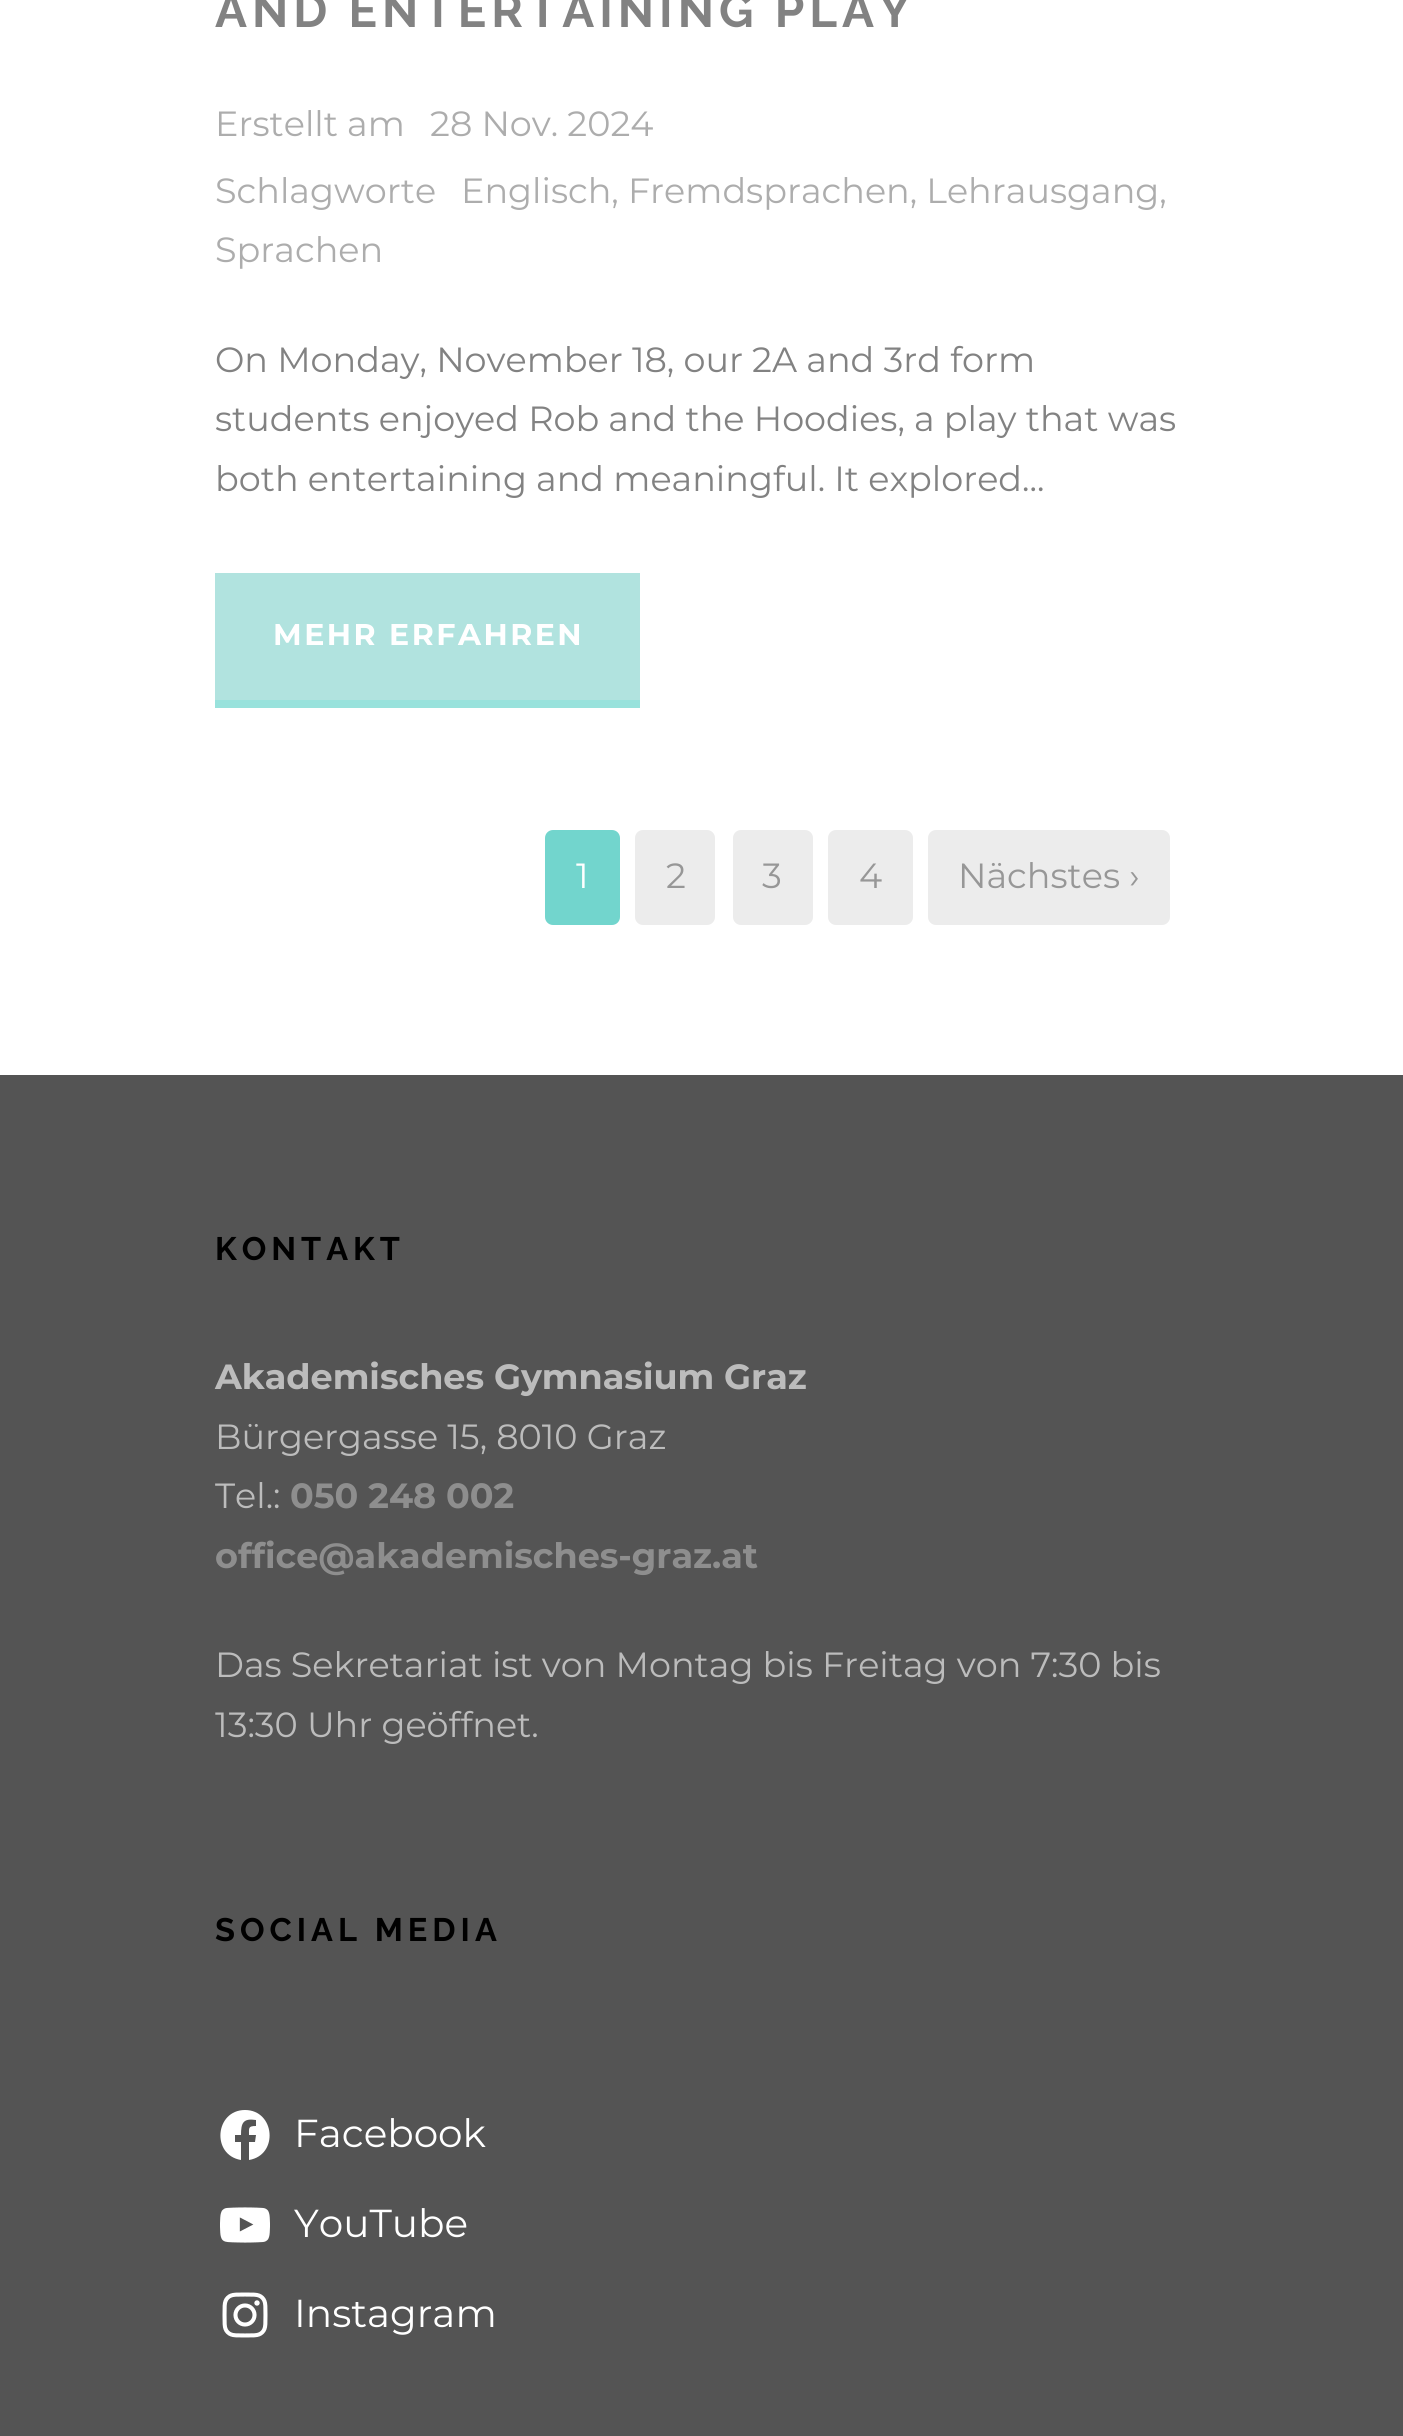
import math
import cairo


def write_spaced(ctx, x, y, s, letter, word):
	ctx.move_to(x, y)
	for ch in s:
		ctx.show_text(ch)
		ctx.rel_move_to(letter + word * (ch == ' '), 0)

def round_path(ctx, x, y, w, h, r):
	ctx.new_sub_path()
	for i, (u, v) in enumerate([(x + w - r, y + h - r), (x + r, y + h - r), (x + r, y + r), (x + w - r, y + r)]):
		ctx.arc(u, v, r, i * math.pi / 2, (i + 1) * math.pi / 2)
	ctx.close_path()

def paste(ctx, path, x, y, w, h):
	ctx.save()
	ctx.set_source_surface(cairo.ImageSurface.create_from_png(path), x, y)
	ctx.rectangle(x, y, w, h)
	ctx.fill()
	ctx.restore()

def draw(ctx):
	ctx.set_source_rgb(1, 1, 1)
	ctx.paint()
	ctx.select_font_face('Raleway', cairo.FONT_SLANT_NORMAL, cairo.FONT_WEIGHT_BOLD)
	ctx.set_font_size(47.5)
	ctx.set_source_rgb(0.51, 0.51, 0.51)
	write_spaced(ctx, 215, 27, 'AND ENTERTAINING PLAY', 5, 0)
	ctx.select_font_face('Montserrat')
	ctx.set_font_size(35)
	ctx.set_source_rgb(0.678, 0.678, 0.678)
	for x, y, s in [
		(215, 136, 'Erstellt am'),
		(430, 136, '28 Nov. 2024'),
		(215, 203, 'Schlagworte'),
		(461, 203, 'Englisch, Fremdsprachen, Lehrausgang,'),
		(215, 262, 'Sprachen'),
	]:
		ctx.move_to(x, y)
		ctx.show_text(s)
	ctx.set_source_rgb(0.51, 0.51, 0.51)
	for x, y, s in [
		(215, 372, 'On Monday, November 18, our 2A and 3rd form'),
		(215, 431, 'students enjoyed Rob and the Hoodies, a play that was'),
		(215, 491, 'both entertaining and meaningful. It explored...'),
	]:
		ctx.move_to(x, y)
		ctx.show_text(s)
	ctx.set_source_rgb(0.694, 0.89, 0.875)
	ctx.rectangle(215, 573, 425, 127)
	ctx.fill()
	ctx.set_source_rgb(0.6, 0.886, 0.863)
	ctx.rectangle(215, 700, 425, 8)
	ctx.fill()
	ctx.select_font_face('Montserrat', cairo.FONT_SLANT_NORMAL, cairo.FONT_WEIGHT_BOLD)
	ctx.set_font_size(30)
	ctx.set_source_rgb(1, 1, 1)
	write_spaced(ctx, 273, 645, 'MEHR ERFAHREN', 2.5, 0)
	ctx.set_source_rgb(0.447, 0.835, 0.804)
	round_path(ctx, 545, 830, 75, 95, 8)
	ctx.fill()
	ctx.select_font_face('Montserrat')
	ctx.set_font_size(35)
	ctx.set_source_rgb(1, 1, 1)
	ctx.move_to(576, 888)
	ctx.show_text('1')
	ctx.set_source_rgb(0.922, 0.922, 0.922)
	round_path(ctx, 635, 830, 80, 95, 8)
	ctx.fill()
	ctx.set_source_rgb(0.592, 0.592, 0.592)
	ctx.move_to(666, 888)
	ctx.show_text('2')
	ctx.set_source_rgb(0.922, 0.922, 0.922)
	round_path(ctx, 733, 830, 80, 95, 8)
	ctx.fill()
	ctx.set_source_rgb(0.592, 0.592, 0.592)
	ctx.move_to(762, 888)
	ctx.show_text('3')
	ctx.set_source_rgb(0.922, 0.922, 0.922)
	round_path(ctx, 828, 830, 85, 95, 8)
	ctx.fill()
	ctx.set_source_rgb(0.592, 0.592, 0.592)
	ctx.move_to(859, 888)
	ctx.show_text('4')
	ctx.set_source_rgb(0.922, 0.922, 0.922)
	round_path(ctx, 928, 830, 242, 95, 8)
	ctx.fill()
	ctx.set_source_rgb(0.592, 0.592, 0.592)
	ctx.move_to(958, 888)
	ctx.show_text('Nächstes ›')
	ctx.set_source_rgb(0.329, 0.329, 0.329)
	ctx.rectangle(0, 1075, 1403, 1361)
	ctx.fill()
	ctx.select_font_face('Raleway', cairo.FONT_SLANT_NORMAL, cairo.FONT_WEIGHT_BOLD)
	ctx.set_font_size(32.5)
	ctx.set_source_rgb(0, 0, 0)
	write_spaced(ctx, 215, 1260, 'KONTAKT', 5, 0)
	ctx.select_font_face('Montserrat', cairo.FONT_SLANT_NORMAL, cairo.FONT_WEIGHT_BOLD)
	ctx.set_font_size(35)
	ctx.set_source_rgb(0.737, 0.737, 0.737)
	ctx.move_to(215, 1389)
	ctx.show_text('Akademisches Gymnasium Graz')
	ctx.select_font_face('Montserrat')
	ctx.move_to(215, 1449)
	ctx.show_text('Bürgergasse 15, 8010 Graz')
	ctx.move_to(215, 1508)
	ctx.show_text('Tel.:')
	ctx.select_font_face('Montserrat', cairo.FONT_SLANT_NORMAL, cairo.FONT_WEIGHT_BOLD)
	ctx.set_source_rgb(0.557, 0.557, 0.557)
	ctx.move_to(290, 1508)
	ctx.show_text('050 248 002')
	ctx.move_to(215, 1568)
	ctx.show_text('office@akademisches-graz.at')
	ctx.select_font_face('Montserrat')
	ctx.set_source_rgb(0.737, 0.737, 0.737)
	ctx.move_to(215, 1677)
	ctx.show_text('Das Sekretariat ist von Montag bis Freitag von 7:30 bis')
	ctx.move_to(215, 1737)
	ctx.show_text('13:30 Uhr geöffnet.')
	ctx.select_font_face('Raleway', cairo.FONT_SLANT_NORMAL, cairo.FONT_WEIGHT_BOLD)
	ctx.set_font_size(32.5)
	ctx.set_source_rgb(0, 0, 0)
	write_spaced(ctx, 215, 1941, 'SOCIAL MEDIA', 5, 0)
	ctx.set_source_rgb(1, 1, 1)
	ctx.new_path()
	ctx.move_to(245, 2110)
	ctx.curve_to(215, 2110, 211, 2155, 241, 2160)
	ctx.line_to(241, 2142)
	ctx.line_to(235, 2142)
	ctx.line_to(235, 2135)
	ctx.line_to(241, 2135)
	ctx.curve_to(241, 2123, 243, 2118, 256, 2120)
	ctx.line_to(256, 2126)
	ctx.curve_to(248, 2126, 249, 2128, 249, 2135)
	ctx.line_to(256, 2135)
	ctx.line_to(255, 2142)
	ctx.line_to(249, 2142)
	ctx.line_to(249, 2160)
	ctx.curve_to(279, 2155, 275, 2110, 245, 2110)
	ctx.close_path()
	ctx.fill()
	ctx.select_font_face('Montserrat')
	ctx.set_font_size(39)
	ctx.move_to(294, 2147)
	ctx.show_text('Facebook')
	paste(ctx, 'media/1.png', 220, 2207, 50, 36)
	ctx.move_to(294, 2237)
	ctx.show_text('YouTube')
	paste(ctx, 'media/2.png', 222, 2292, 46, 46)
	ctx.move_to(294, 2327)
	ctx.show_text('Instagram')


surface = cairo.ImageSurface(cairo.FORMAT_RGB24, 1403, 2436)
ctx = cairo.Context(surface)
options = cairo.FontOptions()
options.set_hint_metrics(cairo.HINT_METRICS_OFF)
options.set_hint_style(cairo.HINT_STYLE_NONE)
ctx.set_font_options(options)
ctx.set_miter_limit(4)
draw(ctx)
surface.write_to_png('image.png')
